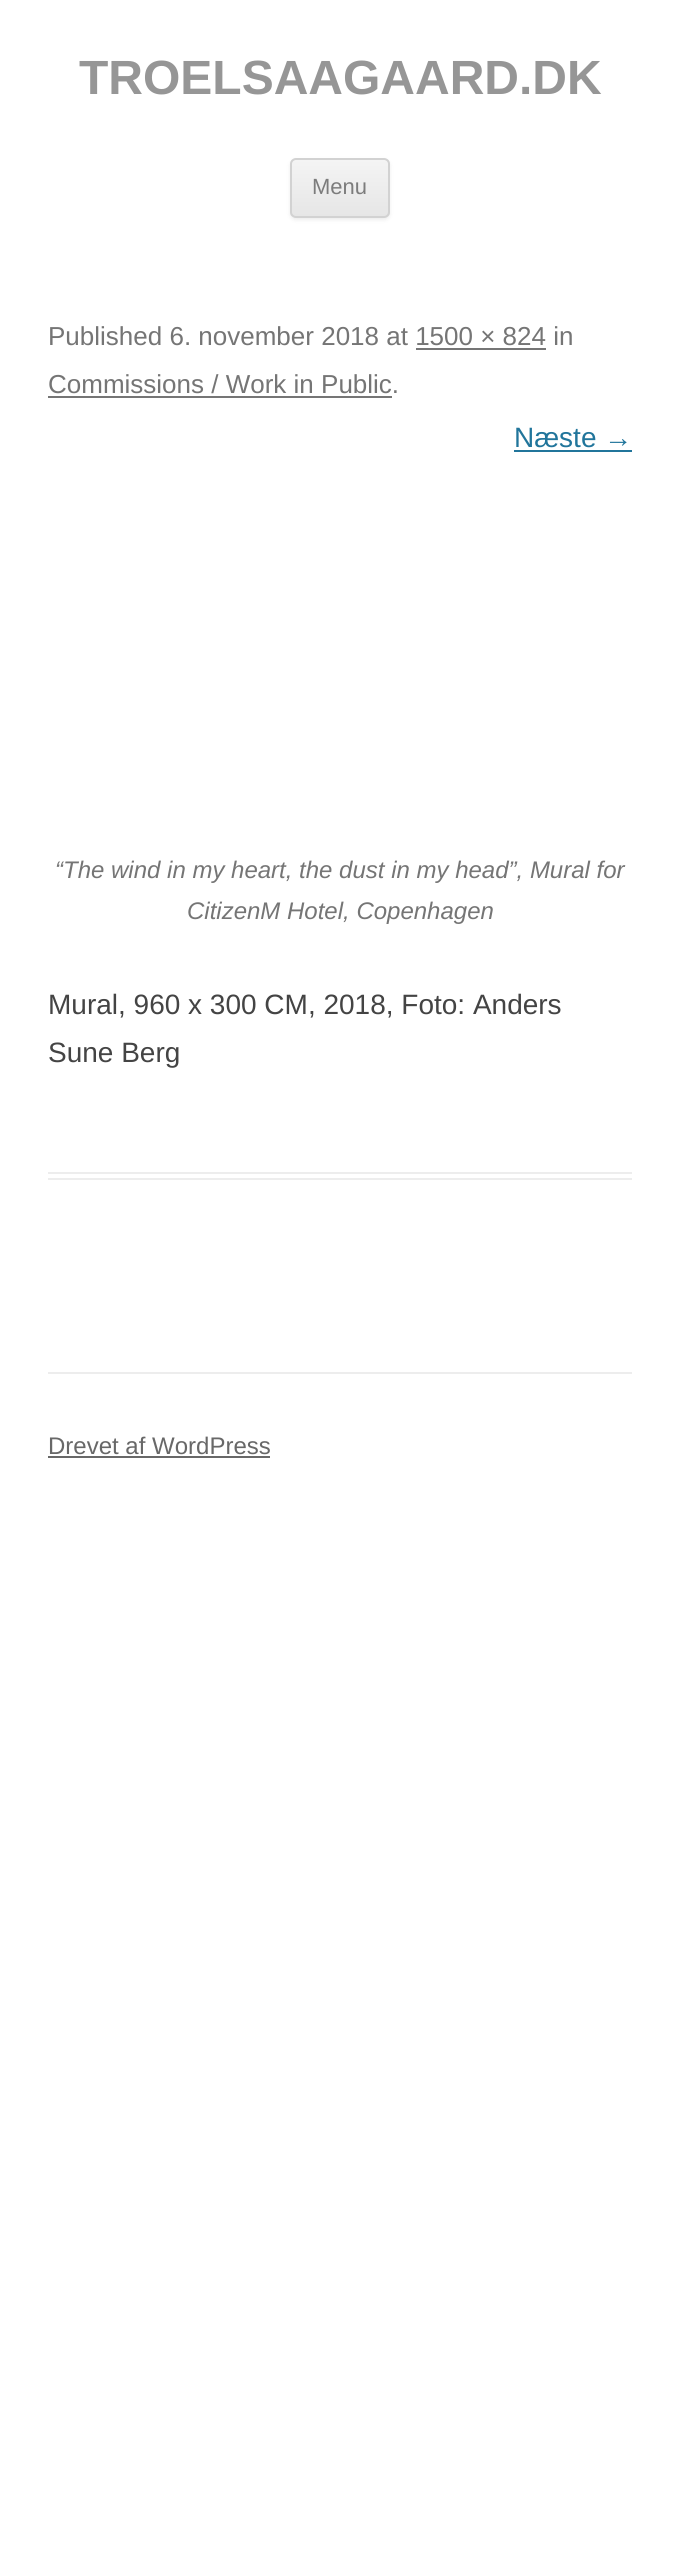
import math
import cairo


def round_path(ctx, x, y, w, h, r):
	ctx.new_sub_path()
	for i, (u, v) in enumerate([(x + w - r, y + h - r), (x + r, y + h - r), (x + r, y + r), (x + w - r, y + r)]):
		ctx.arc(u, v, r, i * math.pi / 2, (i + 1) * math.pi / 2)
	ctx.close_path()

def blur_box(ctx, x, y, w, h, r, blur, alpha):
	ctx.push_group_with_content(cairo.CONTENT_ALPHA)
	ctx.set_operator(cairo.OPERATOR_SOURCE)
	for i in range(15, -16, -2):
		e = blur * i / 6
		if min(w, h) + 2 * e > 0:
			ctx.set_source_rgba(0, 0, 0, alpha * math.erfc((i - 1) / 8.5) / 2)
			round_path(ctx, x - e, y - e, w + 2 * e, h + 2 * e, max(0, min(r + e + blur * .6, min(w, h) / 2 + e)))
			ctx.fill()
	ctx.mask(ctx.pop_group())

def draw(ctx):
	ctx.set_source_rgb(1, 1, 1)
	ctx.paint()
	ctx.select_font_face('Liberation Sans', cairo.FONT_SLANT_NORMAL, cairo.FONT_WEIGHT_BOLD)
	ctx.set_font_size(48)
	ctx.set_source_rgb(0.588, 0.588, 0.588)
	ctx.move_to(79, 94)
	ctx.show_text('TROELSAAGAARD.DK')
	ctx.set_source_rgb(0.251, 0.251, 0.251)
	blur_box(ctx, 290, 160, 100, 60, 6, 2, 0.1)
	ctx.save()
	round_path(ctx, 290, 158, 100, 60, 6)
	ctx.clip()
	gradient = cairo.LinearGradient(340, 160, 340, 216)
	gradient.add_color_stop_rgba(0, 0.957, 0.957, 0.957, 1)
	gradient.add_color_stop_rgba(1, 0.902, 0.902, 0.902, 1)
	ctx.set_source(gradient)
	ctx.rectangle(290, 160, 100, 56)
	ctx.fill()
	ctx.restore()
	round_path(ctx, 291, 159, 98, 58, 5)
	ctx.set_source_rgb(0.824, 0.824, 0.824)
	ctx.stroke()
	ctx.select_font_face('Liberation Sans')
	ctx.set_font_size(22)
	ctx.set_source_rgb(0.486, 0.486, 0.486)
	ctx.move_to(312, 194)
	ctx.show_text('Menu')
	ctx.set_source_rgb(0.929, 0.929, 0.929)
	ctx.rectangle(48, 1172, 584, 2)
	ctx.fill()
	ctx.rectangle(48, 1178, 584, 2)
	ctx.fill()
	ctx.set_font_size(26)
	ctx.set_source_rgb(0.459, 0.459, 0.459)
	ctx.move_to(48, 345)
	ctx.show_text('Published 6. november 2018 at 1500 × 824 in')
	ctx.rectangle(416, 348, 130, 2)
	ctx.fill()
	ctx.move_to(48, 393)
	ctx.show_text('Commissions / Work in Public.')
	ctx.rectangle(48, 396, 344, 2)
	ctx.fill()
	ctx.set_font_size(28)
	ctx.set_source_rgb(0.129, 0.459, 0.608)
	ctx.move_to(514, 447)
	ctx.show_text('Næste →')
	ctx.rectangle(514, 450, 118, 2)
	ctx.fill()
	ctx.select_font_face('Liberation Sans', cairo.FONT_SLANT_ITALIC)
	ctx.set_font_size(24)
	ctx.set_source_rgb(0.459, 0.459, 0.459)
	ctx.move_to(55, 878)
	ctx.show_text('“The wind in my heart, the dust in my head”, Mural for')
	ctx.move_to(187, 919)
	ctx.show_text('CitizenM Hotel, Copenhagen')
	ctx.select_font_face('Liberation Sans')
	ctx.set_font_size(28)
	ctx.set_source_rgb(0.267, 0.267, 0.267)
	ctx.move_to(48, 1014)
	ctx.show_text('Mural, 960 x 300 CM, 2018, Foto: Anders')
	ctx.move_to(48, 1062)
	ctx.show_text('Sune Berg')
	ctx.set_source_rgb(0.929, 0.929, 0.929)
	ctx.rectangle(48, 1372, 584, 2)
	ctx.fill()
	ctx.set_font_size(24)
	ctx.set_source_rgb(0.408, 0.408, 0.408)
	ctx.move_to(48, 1454)
	ctx.show_text('Drevet af WordPress')
	ctx.rectangle(48, 1456, 222, 2)
	ctx.fill()


surface = cairo.ImageSurface(cairo.FORMAT_RGB24, 680, 2569)
ctx = cairo.Context(surface)
options = cairo.FontOptions()
options.set_hint_metrics(cairo.HINT_METRICS_OFF)
options.set_hint_style(cairo.HINT_STYLE_NONE)
ctx.set_font_options(options)
ctx.set_miter_limit(4)
draw(ctx)
surface.write_to_png('image.png')
